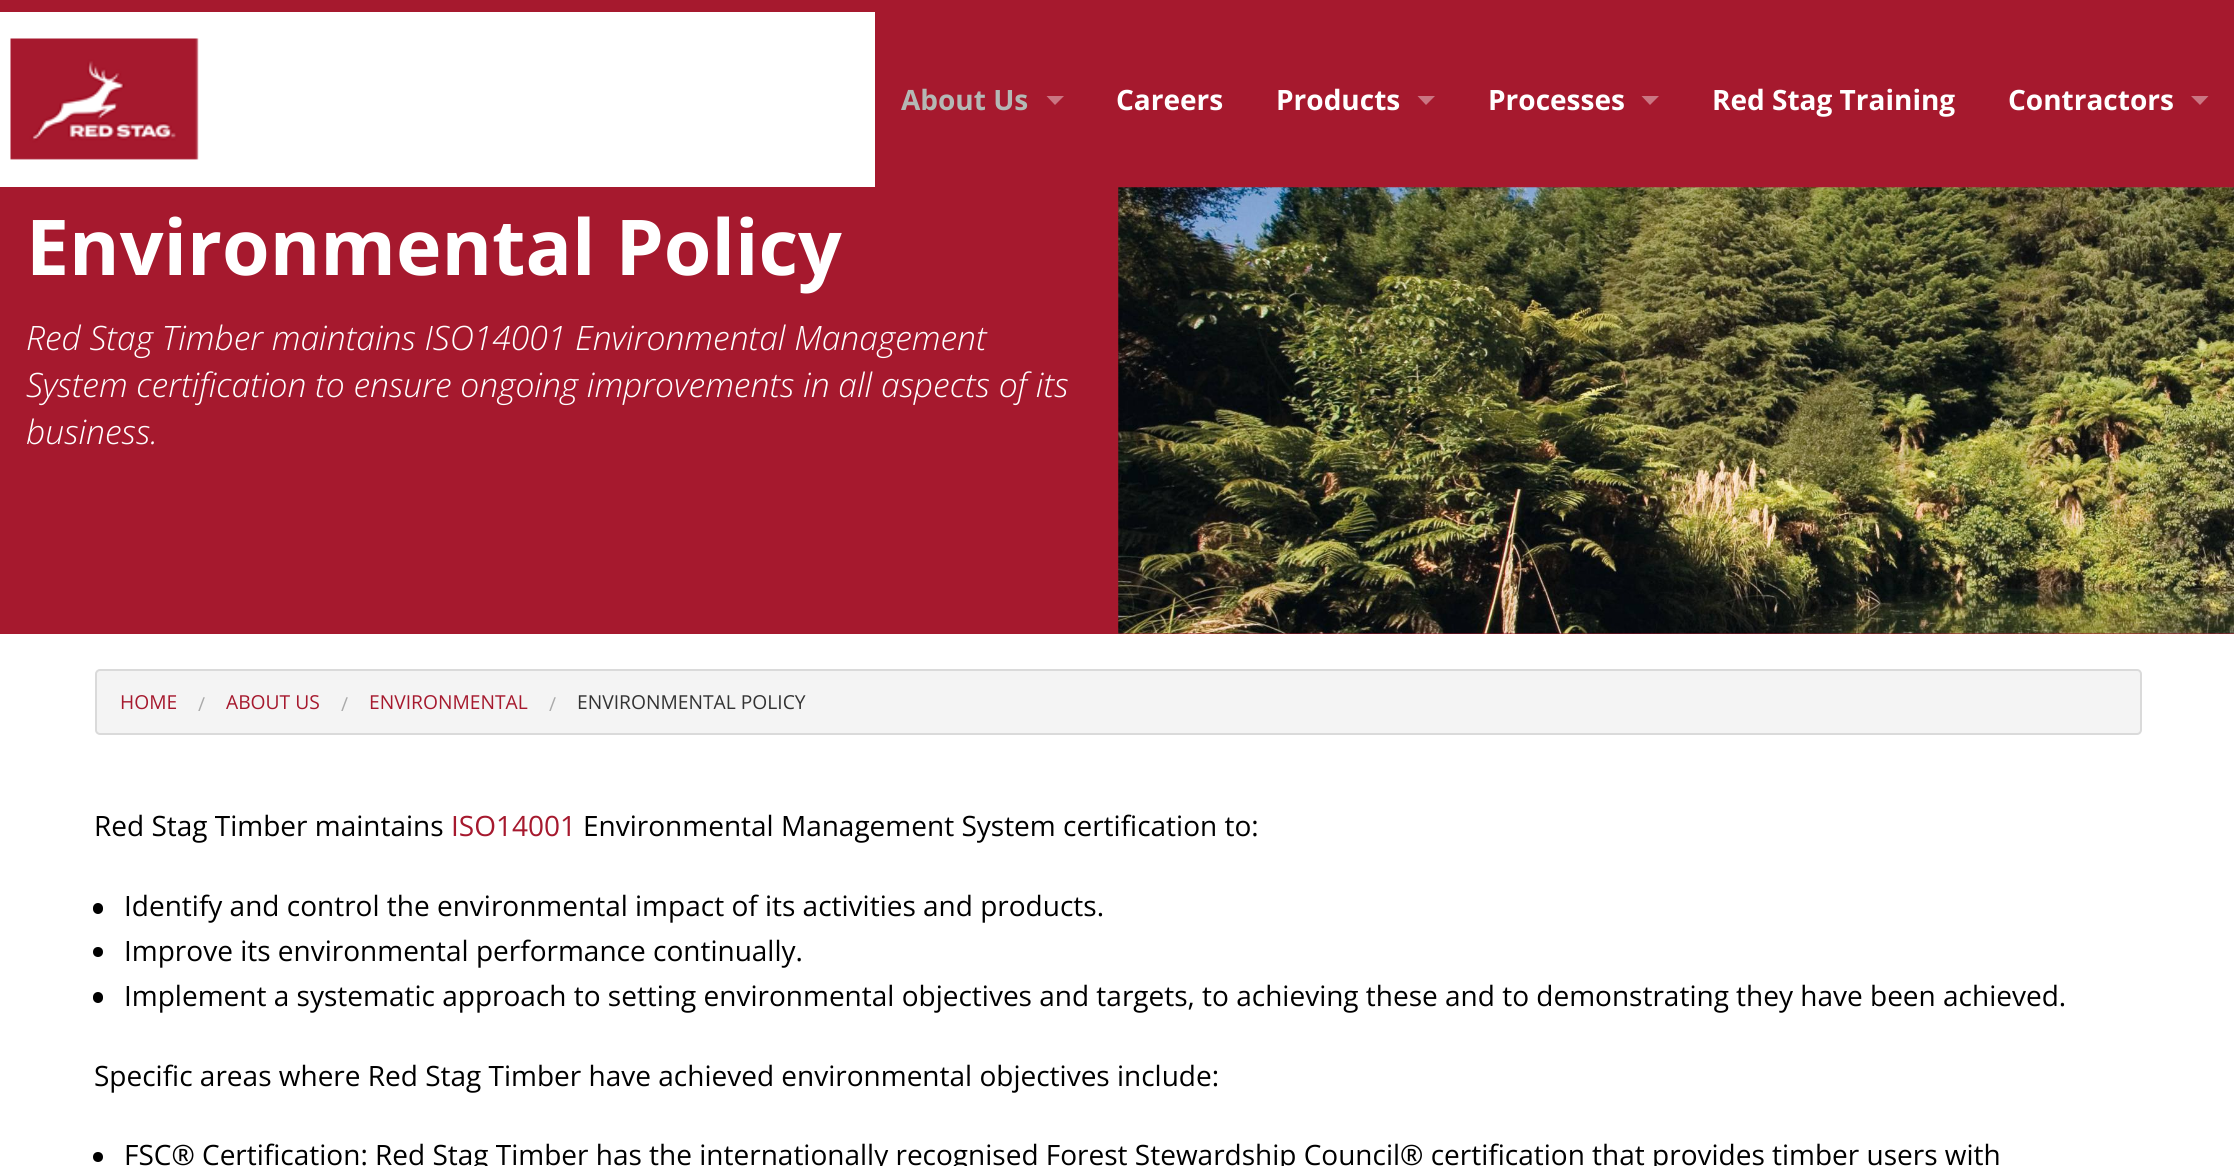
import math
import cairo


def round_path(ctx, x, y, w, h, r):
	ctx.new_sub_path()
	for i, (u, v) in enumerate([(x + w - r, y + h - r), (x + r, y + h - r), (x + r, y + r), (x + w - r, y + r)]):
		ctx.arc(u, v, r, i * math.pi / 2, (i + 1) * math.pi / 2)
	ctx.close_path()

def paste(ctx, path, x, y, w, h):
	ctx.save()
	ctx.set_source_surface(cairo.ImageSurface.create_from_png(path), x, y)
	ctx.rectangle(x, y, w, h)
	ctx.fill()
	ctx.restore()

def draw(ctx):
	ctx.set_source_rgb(1, 1, 1)
	ctx.paint()
	ctx.set_source_rgb(0.651, 0.098, 0.18)
	ctx.rectangle(0, 0, 2234, 12)
	ctx.fill()
	paste(ctx, 'media/1.png', 10, 38, 189, 122)
	ctx.rectangle(875, 12, 1359, 175)
	ctx.fill()
	ctx.select_font_face('Open Sans', cairo.FONT_SLANT_NORMAL, cairo.FONT_WEIGHT_BOLD)
	ctx.set_font_size(28)
	ctx.set_source_rgb(0.706, 0.722, 0.71)
	ctx.move_to(901, 110)
	ctx.show_text('About Us')
	ctx.set_source_rgb(0.792, 0.459, 0.51)
	ctx.new_path()
	ctx.move_to(1046.5, 96)
	ctx.line_to(1064, 96)
	ctx.line_to(1055, 105)
	ctx.close_path()
	ctx.fill()
	ctx.set_source_rgb(1, 1, 1)
	ctx.move_to(1116, 110)
	ctx.show_text('Careers')
	ctx.move_to(1276, 110)
	ctx.show_text('Products')
	ctx.set_source_rgb(0.792, 0.459, 0.51)
	ctx.new_path()
	ctx.move_to(1417.5, 96)
	ctx.line_to(1435, 96)
	ctx.line_to(1426, 105)
	ctx.close_path()
	ctx.fill()
	ctx.set_source_rgb(1, 1, 1)
	ctx.move_to(1488, 110)
	ctx.show_text('Processes')
	ctx.set_source_rgb(0.792, 0.459, 0.51)
	ctx.new_path()
	ctx.move_to(1641.5, 96)
	ctx.line_to(1659, 96)
	ctx.line_to(1650, 105)
	ctx.close_path()
	ctx.fill()
	ctx.set_source_rgb(1, 1, 1)
	ctx.move_to(1712, 110)
	ctx.show_text('Red Stag Training')
	ctx.move_to(2008, 110)
	ctx.show_text('Contractors')
	ctx.set_source_rgb(0.792, 0.459, 0.51)
	ctx.new_path()
	ctx.move_to(2191, 96)
	ctx.line_to(2208.5, 96)
	ctx.line_to(2200, 105)
	ctx.close_path()
	ctx.fill()
	ctx.set_source_rgb(0.651, 0.098, 0.18)
	ctx.rectangle(0, 187, 2234, 447)
	ctx.fill()
	ctx.set_font_size(77)
	ctx.set_source_rgb(1, 1, 1)
	ctx.move_to(26, 275)
	ctx.show_text('Environmental Policy')
	ctx.select_font_face('Open Sans Light', cairo.FONT_SLANT_ITALIC)
	ctx.set_font_size(33.6)
	for x, y, s in [
		(26, 350, 'Red Stag Timber maintains ISO14001 Environmental Management'),
		(26, 397, 'System certification to ensure ongoing improvements in all aspects of its'),
		(26, 444, 'business.'),
	]:
		ctx.move_to(x, y)
		ctx.show_text(s)
	paste(ctx, 'media/2.png', 1118, 187, 1116, 447)
	ctx.set_source_rgb(0.957, 0.957, 0.957)
	round_path(ctx, 96, 670, 2045, 64, 4)
	ctx.fill_preserve()
	ctx.set_source_rgb(0.855, 0.855, 0.855)
	ctx.stroke()
	ctx.select_font_face('Open Sans')
	ctx.set_font_size(19.25)
	ctx.set_source_rgb(0.651, 0.098, 0.18)
	ctx.move_to(120, 709)
	ctx.show_text('HOME')
	ctx.set_source_rgb(0.667, 0.667, 0.667)
	ctx.move_to(198, 711)
	ctx.show_text('/')
	ctx.set_source_rgb(0.651, 0.098, 0.18)
	ctx.move_to(226, 709)
	ctx.show_text('ABOUT US')
	ctx.set_source_rgb(0.667, 0.667, 0.667)
	ctx.move_to(341, 711)
	ctx.show_text('/')
	ctx.set_source_rgb(0.651, 0.098, 0.18)
	ctx.move_to(369, 709)
	ctx.show_text('ENVIRONMENTAL')
	ctx.set_source_rgb(0.667, 0.667, 0.667)
	ctx.move_to(549, 711)
	ctx.show_text('/')
	ctx.set_source_rgb(0.2, 0.2, 0.2)
	ctx.move_to(577, 709)
	ctx.show_text('ENVIRONMENTAL POLICY')
	ctx.set_font_size(28)
	ctx.set_source_rgb(0, 0, 0)
	ctx.move_to(94, 836)
	ctx.show_text('Red Stag Timber maintains')
	ctx.set_source_rgb(0.651, 0.098, 0.18)
	ctx.move_to(451, 836)
	ctx.show_text('ISO14001')
	ctx.set_source_rgb(0, 0, 0)
	ctx.move_to(583, 836)
	ctx.show_text('Environmental Management System certification to:')
	round_path(ctx, 93, 903, 10, 11, 5)
	ctx.fill()
	ctx.move_to(124, 916)
	ctx.show_text('Identify and control the environmental impact of its activities and products.')
	ctx.new_path()
	ctx.arc(98, 952, 5, 0, 2 * math.pi)
	ctx.fill()
	ctx.move_to(124, 961)
	ctx.show_text('Improve its environmental performance continually.')
	round_path(ctx, 93, 992, 10, 11, 5)
	ctx.fill()
	ctx.move_to(124, 1006)
	ctx.show_text('Implement a systematic approach to setting environmental objectives and targets, to achieving these and to demonstrating they have been achieved.')
	ctx.move_to(94, 1086)
	ctx.show_text('Specific areas where Red Stag Timber have achieved environmental objectives include:')
	ctx.new_path()
	ctx.arc(98, 1157, 5, 0, 2 * math.pi)
	ctx.fill()
	ctx.move_to(124, 1165)
	ctx.show_text('FSC® Certification: Red Stag Timber has the internationally recognised Forest Stewardship Council® certification that provides timber users with')


surface = cairo.ImageSurface(cairo.FORMAT_RGB24, 2234, 1166)
ctx = cairo.Context(surface)
options = cairo.FontOptions()
options.set_hint_metrics(cairo.HINT_METRICS_OFF)
options.set_hint_style(cairo.HINT_STYLE_NONE)
ctx.set_font_options(options)
ctx.set_miter_limit(4)
draw(ctx)
surface.write_to_png('image.png')
